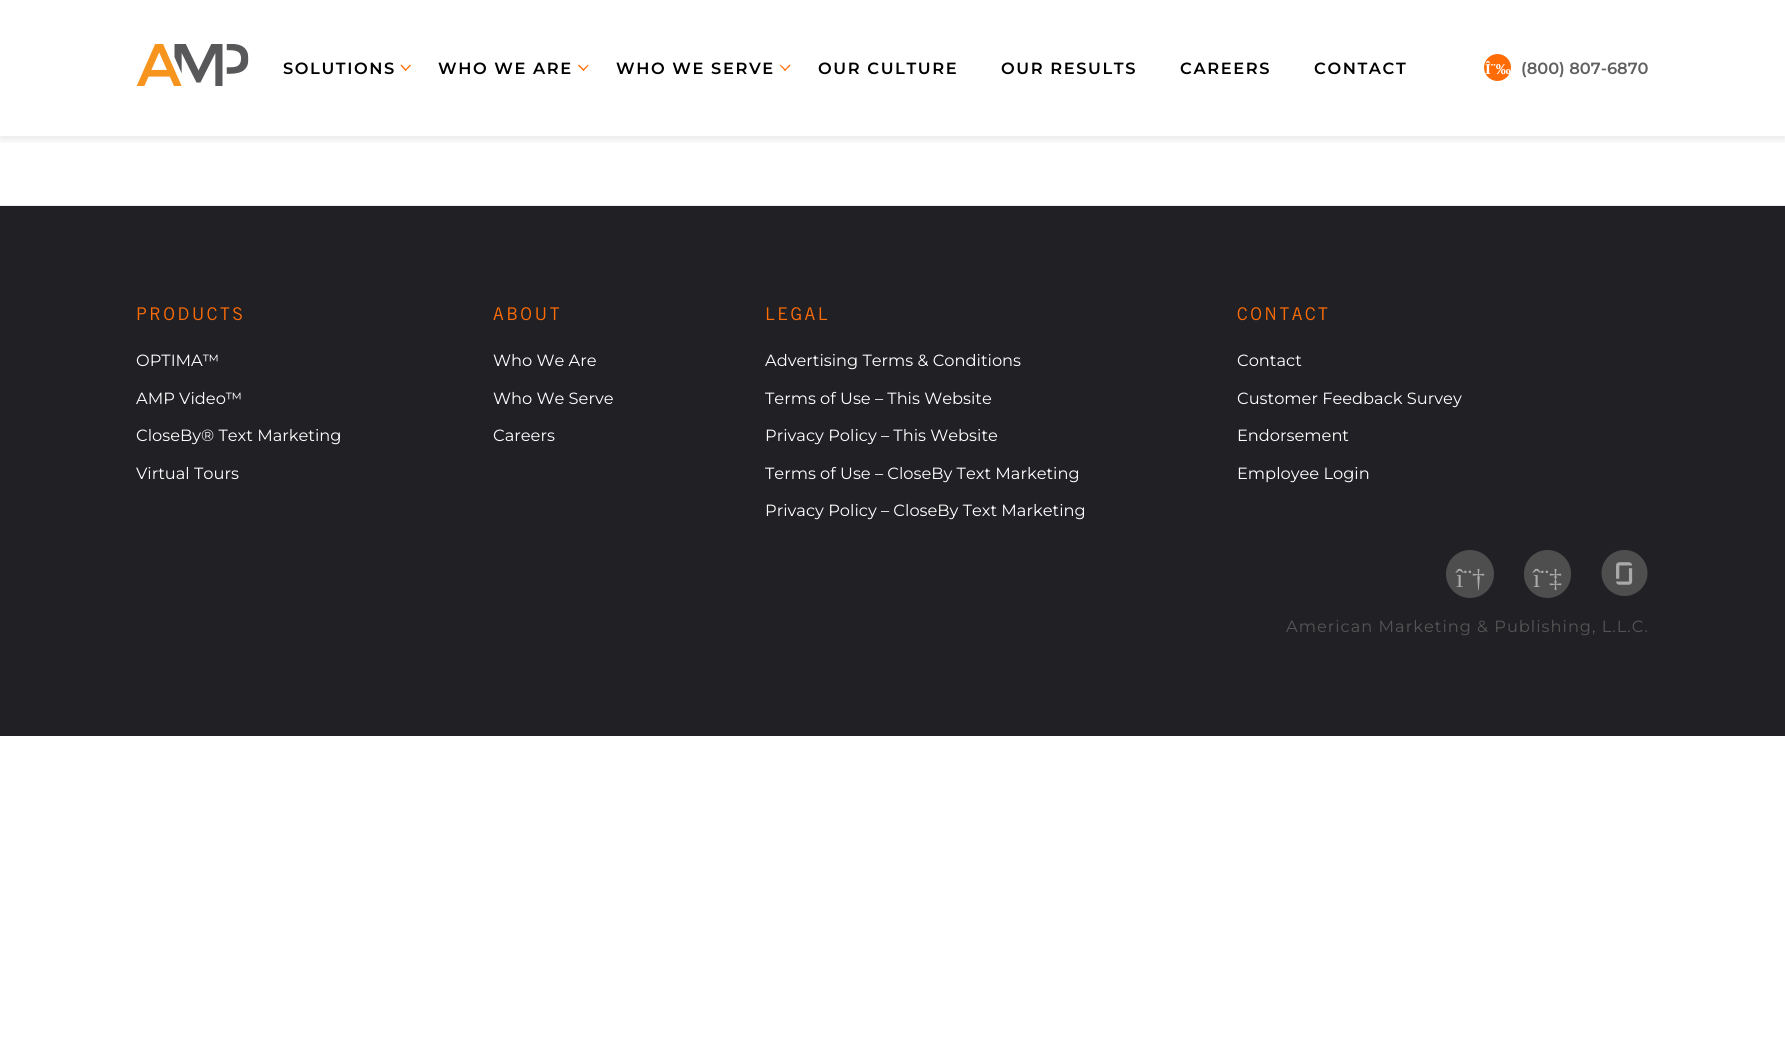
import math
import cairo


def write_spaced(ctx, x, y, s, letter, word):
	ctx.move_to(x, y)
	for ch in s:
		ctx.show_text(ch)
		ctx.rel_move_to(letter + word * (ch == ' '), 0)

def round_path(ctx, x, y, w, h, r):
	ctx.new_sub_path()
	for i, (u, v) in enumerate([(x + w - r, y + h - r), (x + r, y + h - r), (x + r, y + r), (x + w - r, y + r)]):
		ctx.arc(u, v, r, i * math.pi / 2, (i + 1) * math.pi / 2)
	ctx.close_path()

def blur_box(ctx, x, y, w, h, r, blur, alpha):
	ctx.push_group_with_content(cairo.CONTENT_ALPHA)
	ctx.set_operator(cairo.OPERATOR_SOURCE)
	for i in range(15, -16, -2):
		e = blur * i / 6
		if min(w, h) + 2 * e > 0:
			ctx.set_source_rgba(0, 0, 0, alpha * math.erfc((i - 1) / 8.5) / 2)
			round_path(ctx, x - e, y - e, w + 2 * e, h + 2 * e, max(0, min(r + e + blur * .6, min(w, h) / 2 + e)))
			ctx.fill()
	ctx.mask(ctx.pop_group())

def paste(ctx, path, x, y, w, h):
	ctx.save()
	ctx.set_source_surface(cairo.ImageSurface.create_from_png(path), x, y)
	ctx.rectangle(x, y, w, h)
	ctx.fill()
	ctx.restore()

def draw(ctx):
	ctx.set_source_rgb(1, 1, 1)
	ctx.paint()
	ctx.save()
	ctx.rectangle(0, 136, 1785, 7)
	ctx.clip()
	ctx.set_source_rgb(0, 0, 0)
	blur_box(ctx, 0, 3, 1785, 136, 0, 5, 0.1)
	ctx.restore()
	paste(ctx, 'media/1.png', 136, 44, 113, 42)
	ctx.select_font_face('Montserrat SemiBold')
	ctx.set_font_size(16.25)
	ctx.set_source_rgb(0, 0, 0)
	write_spaced(ctx, 283, 74, 'SOLUTIONS', 1.6, 0)
	ctx.set_source_rgb(1, 0.424, 0.024)
	ctx.new_path()
	ctx.move_to(410, 64.5)
	ctx.line_to(411, 65.5)
	ctx.line_to(405.5, 71)
	ctx.line_to(405, 70)
	ctx.close_path()
	ctx.fill()
	ctx.new_path()
	ctx.move_to(401.5, 64.5)
	ctx.line_to(406.5, 70)
	ctx.line_to(405.5, 71)
	ctx.line_to(400.5, 65.5)
	ctx.close_path()
	ctx.fill()
	ctx.set_source_rgb(0, 0, 0)
	write_spaced(ctx, 438, 74, 'WHO WE ARE', 1.6, 0)
	ctx.set_source_rgb(1, 0.424, 0.024)
	ctx.new_path()
	ctx.move_to(588, 64.5)
	ctx.line_to(588.5, 65.5)
	ctx.line_to(583.5, 71)
	ctx.line_to(582.5, 70)
	ctx.close_path()
	ctx.fill()
	ctx.new_path()
	ctx.move_to(579, 64.5)
	ctx.line_to(584.5, 70)
	ctx.line_to(583.5, 71)
	ctx.line_to(578, 65.5)
	ctx.close_path()
	ctx.fill()
	ctx.set_source_rgb(0, 0, 0)
	write_spaced(ctx, 616, 74, 'WHO WE SERVE', 1.6, 0)
	ctx.set_source_rgb(1, 0.424, 0.024)
	ctx.new_path()
	ctx.move_to(789.5, 64.5)
	ctx.line_to(790.5, 65.5)
	ctx.line_to(785, 71)
	ctx.line_to(784.5, 70)
	ctx.close_path()
	ctx.fill()
	ctx.new_path()
	ctx.move_to(780.5, 64.5)
	ctx.line_to(786, 70)
	ctx.line_to(785, 71)
	ctx.line_to(780, 65.5)
	ctx.close_path()
	ctx.fill()
	ctx.set_source_rgb(0, 0, 0)
	for x, y, s in [
		(818, 74, 'OUR CULTURE'),
		(1001, 74, 'OUR RESULTS'),
		(1180, 74, 'CAREERS'),
		(1314, 74, 'CONTACT'),
	]:
		write_spaced(ctx, x, y, s, 1.6, 0)
	ctx.set_source_rgb(1, 0.424, 0.024)
	ctx.new_path()
	ctx.arc(1497.5, 67.5, 13.5, 0, 2 * math.pi)
	ctx.fill()
	ctx.select_font_face('Liberation Serif', cairo.FONT_SLANT_NORMAL, cairo.FONT_WEIGHT_BOLD)
	ctx.set_font_size(15)
	ctx.set_source_rgb(1, 1, 1)
	ctx.move_to(1485, 74)
	ctx.show_text('Î¨‰')
	ctx.select_font_face('Montserrat SemiBold')
	ctx.set_font_size(16.25)
	ctx.set_source_rgb(0.376, 0.376, 0.376)
	ctx.move_to(1521, 74)
	ctx.show_text('(800) 807-6870')
	ctx.set_source_rgb(0.922, 0.922, 0.922)
	ctx.rectangle(0, 205, 1785, 1)
	ctx.fill()
	ctx.set_source_rgb(0.129, 0.129, 0.145)
	ctx.rectangle(0, 206, 1785, 530)
	ctx.fill()
	ctx.select_font_face('Trade Gothic')
	ctx.set_font_size(17.5)
	ctx.set_source_rgb(1, 0.424, 0.024)
	write_spaced(ctx, 136, 320, 'PRODUCTS', 2.5, 0)
	ctx.select_font_face('Montserrat')
	ctx.set_font_size(16.25)
	ctx.set_source_rgb(1, 1, 1)
	for x, y, s in [
		(136, 366, 'OPTIMA™'),
		(136, 404, 'AMP Video™'),
		(136, 441, 'CloseBy® Text Marketing'),
		(136, 479, 'Virtual Tours'),
	]:
		ctx.move_to(x, y)
		ctx.show_text(s)
	ctx.select_font_face('Trade Gothic')
	ctx.set_font_size(17.5)
	ctx.set_source_rgb(1, 0.424, 0.024)
	write_spaced(ctx, 493, 320, 'ABOUT', 2.5, 0)
	ctx.select_font_face('Montserrat')
	ctx.set_font_size(16.25)
	ctx.set_source_rgb(1, 1, 1)
	for x, y, s in [
		(493, 366, 'Who We Are'),
		(493, 404, 'Who We Serve'),
		(493, 441, 'Careers'),
	]:
		ctx.move_to(x, y)
		ctx.show_text(s)
	ctx.select_font_face('Trade Gothic')
	ctx.set_font_size(17.5)
	ctx.set_source_rgb(1, 0.424, 0.024)
	write_spaced(ctx, 765, 320, 'LEGAL', 2.5, 0)
	ctx.select_font_face('Montserrat')
	ctx.set_font_size(16.25)
	ctx.set_source_rgb(1, 1, 1)
	for x, y, s in [
		(765, 366, 'Advertising Terms & Conditions'),
		(765, 404, 'Terms of Use – This Website'),
		(765, 441, 'Privacy Policy – This Website'),
		(765, 479, 'Terms of Use – CloseBy Text Marketing'),
		(765, 516, 'Privacy Policy – CloseBy Text Marketing'),
	]:
		ctx.move_to(x, y)
		ctx.show_text(s)
	ctx.select_font_face('Trade Gothic')
	ctx.set_font_size(17.5)
	ctx.set_source_rgb(1, 0.424, 0.024)
	write_spaced(ctx, 1237, 320, 'CONTACT', 2.5, 0)
	ctx.select_font_face('Montserrat')
	ctx.set_font_size(16.25)
	ctx.set_source_rgb(1, 1, 1)
	for x, y, s in [
		(1237, 366, 'Contact'),
		(1237, 404, 'Customer Feedback Survey'),
		(1237, 441, 'Endorsement'),
		(1237, 479, 'Employee Login'),
	]:
		ctx.move_to(x, y)
		ctx.show_text(s)
	ctx.set_source_rgb(0.306, 0.306, 0.306)
	ctx.new_path()
	ctx.arc(1470, 574, 24, 0, 2 * math.pi)
	ctx.fill()
	ctx.select_font_face('Liberation Serif')
	ctx.set_font_size(26)
	ctx.set_source_rgb(0.667, 0.667, 0.667)
	ctx.move_to(1456, 587)
	ctx.show_text('î¨†')
	ctx.set_source_rgb(0.306, 0.306, 0.306)
	round_path(ctx, 1524, 550, 47, 48, 23.5)
	ctx.fill()
	ctx.set_source_rgb(0.667, 0.667, 0.667)
	ctx.move_to(1533, 587)
	ctx.show_text('î¨‡')
	paste(ctx, 'media/2.png', 1601, 550, 47, 46)
	ctx.select_font_face('Montserrat')
	ctx.set_font_size(16.25)
	ctx.set_source_rgb(0.333, 0.333, 0.333)
	write_spaced(ctx, 1286, 632, 'American Marketing & Publishing, L.L.C.', 1, 0)


surface = cairo.ImageSurface(cairo.FORMAT_RGB24, 1785, 1037)
ctx = cairo.Context(surface)
options = cairo.FontOptions()
options.set_hint_metrics(cairo.HINT_METRICS_OFF)
options.set_hint_style(cairo.HINT_STYLE_NONE)
ctx.set_font_options(options)
ctx.set_miter_limit(4)
draw(ctx)
surface.write_to_png('image.png')
